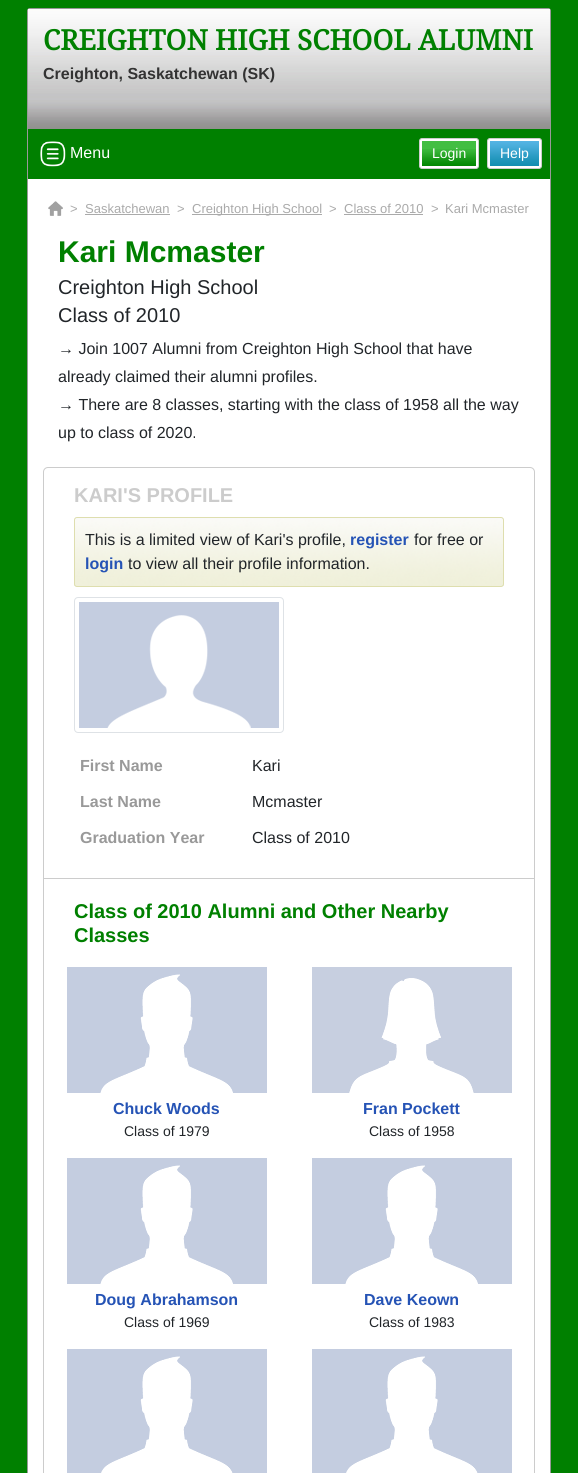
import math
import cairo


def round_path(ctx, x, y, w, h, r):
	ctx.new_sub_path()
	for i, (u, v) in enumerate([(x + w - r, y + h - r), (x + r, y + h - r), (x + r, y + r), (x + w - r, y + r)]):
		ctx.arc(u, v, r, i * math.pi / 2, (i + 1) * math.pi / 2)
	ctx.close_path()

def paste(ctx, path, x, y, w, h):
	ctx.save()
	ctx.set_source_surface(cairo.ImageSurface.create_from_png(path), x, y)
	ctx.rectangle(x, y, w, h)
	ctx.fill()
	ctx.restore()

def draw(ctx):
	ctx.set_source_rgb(0, 0.502, 0)
	ctx.paint()
	ctx.set_source_rgb(1, 1, 1)
	round_path(ctx, 27.5, 8.5, 523, 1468, 2.5)
	ctx.fill_preserve()
	ctx.set_source_rgb(0.6, 0.6, 0.6)
	ctx.set_line_width(1)
	ctx.stroke()
	paste(ctx, 'media/1.png', 28, 9, 522, 120)
	ctx.select_font_face('Droid Serif', cairo.FONT_SLANT_NORMAL, cairo.FONT_WEIGHT_BOLD)
	ctx.set_font_size(28)
	ctx.set_source_rgb(0, 0.502, 0)
	ctx.move_to(43, 50)
	ctx.show_text('CREIGHTON HIGH SCHOOL ALUMNI')
	ctx.select_font_face('Liberation Sans', cairo.FONT_SLANT_NORMAL, cairo.FONT_WEIGHT_BOLD)
	ctx.set_font_size(16)
	ctx.set_source_rgb(0.2, 0.2, 0.2)
	ctx.move_to(43, 79)
	ctx.show_text('Creighton, Saskatchewan (SK)')
	ctx.set_source_rgb(0, 0.502, 0)
	ctx.rectangle(28, 129, 522, 50)
	ctx.fill()
	paste(ctx, 'media/2.png', 40, 141, 26, 26)
	ctx.select_font_face('Liberation Sans')
	ctx.set_source_rgb(1, 1, 1)
	ctx.move_to(70, 158)
	ctx.show_text('Menu')
	round_path(ctx, 419.5, 138.5, 59, 30, 2.5)
	ctx.fill_preserve()
	ctx.set_source_rgb(0.8, 0.8, 0.8)
	ctx.stroke()
	ctx.set_source_rgb(0.259, 0.745, 0.259)
	ctx.rectangle(422, 141, 54, 8)
	ctx.fill()
	paste(ctx, 'media/3.png', 422, 149, 54, 17)
	ctx.set_font_size(14)
	ctx.set_source_rgb(1, 1, 1)
	ctx.move_to(432, 158)
	ctx.show_text('Login')
	round_path(ctx, 487.5, 138.5, 54, 30, 2.5)
	ctx.fill_preserve()
	ctx.set_source_rgb(0.8, 0.8, 0.8)
	ctx.stroke()
	paste(ctx, 'media/4.png', 490, 141, 49, 25)
	ctx.set_source_rgb(1, 1, 1)
	ctx.move_to(500, 158)
	ctx.show_text('Help')
	paste(ctx, 'media/5.png', 48, 201, 15, 15)
	ctx.set_font_size(13)
	ctx.set_source_rgb(0.667, 0.667, 0.667)
	ctx.move_to(70, 213)
	ctx.show_text('>')
	ctx.move_to(85, 213)
	ctx.show_text('Saskatchewan')
	ctx.rectangle(85, 214, 85, 1)
	ctx.fill()
	ctx.move_to(177, 213)
	ctx.show_text('>')
	ctx.rectangle(192, 214, 130, 1)
	ctx.fill()
	for x, y, s in [
		(192, 213, 'Creighton High School'),
		(329, 213, '>'),
		(344, 213, 'Class of 2010'),
	]:
		ctx.move_to(x, y)
		ctx.show_text(s)
	ctx.rectangle(344, 214, 79, 1)
	ctx.fill()
	ctx.move_to(431, 213)
	ctx.show_text('>')
	ctx.move_to(445, 213)
	ctx.show_text('Kari Mcmaster')
	ctx.select_font_face('Liberation Sans', cairo.FONT_SLANT_NORMAL, cairo.FONT_WEIGHT_BOLD)
	ctx.set_font_size(30)
	ctx.set_source_rgb(0, 0.502, 0)
	ctx.move_to(58, 262)
	ctx.show_text('Kari Mcmaster')
	ctx.select_font_face('Liberation Sans')
	ctx.set_font_size(20)
	ctx.set_source_rgb(0.129, 0.145, 0.161)
	ctx.move_to(58, 294)
	ctx.show_text('Creighton High School')
	ctx.move_to(58, 322)
	ctx.show_text('Class of 2010')
	ctx.set_font_size(16)
	for x, y, s in [
		(58, 354, '→ Join 1007 Alumni from Creighton High School that have'),
		(58, 382, 'already claimed their alumni profiles.'),
		(58, 410, '→ There are 8 classes, starting with the class of 1958 all the way'),
		(58, 438, 'up to class of 2020.'),
	]:
		ctx.move_to(x, y)
		ctx.show_text(s)
	round_path(ctx, 43.5, 467.5, 491, 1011, 4.5)
	ctx.set_source_rgb(0.8, 0.8, 0.8)
	ctx.stroke()
	ctx.select_font_face('Liberation Sans', cairo.FONT_SLANT_NORMAL, cairo.FONT_WEIGHT_BOLD)
	ctx.set_font_size(20)
	ctx.move_to(74, 502)
	ctx.show_text('KARI\'S PROFILE')
	ctx.set_source_rgb(0.976, 0.976, 0.976)
	round_path(ctx, 74, 517, 430, 70, 3)
	ctx.fill()
	paste(ctx, 'media/6.png', 74, 519, 430, 67)
	round_path(ctx, 74.5, 517.5, 429, 69, 2.5)
	ctx.set_source_rgb(0.871, 0.871, 0.682)
	ctx.stroke()
	ctx.select_font_face('Liberation Sans')
	ctx.set_font_size(16)
	ctx.set_source_rgb(0.129, 0.145, 0.161)
	ctx.move_to(85, 545)
	ctx.show_text('This is a limited view of Kari\'s profile,')
	ctx.select_font_face('Liberation Sans', cairo.FONT_SLANT_NORMAL, cairo.FONT_WEIGHT_BOLD)
	ctx.set_source_rgb(0.145, 0.325, 0.71)
	ctx.move_to(350, 545)
	ctx.show_text('register')
	ctx.select_font_face('Liberation Sans')
	ctx.set_source_rgb(0.129, 0.145, 0.161)
	ctx.move_to(414, 545)
	ctx.show_text('for free or')
	ctx.select_font_face('Liberation Sans', cairo.FONT_SLANT_NORMAL, cairo.FONT_WEIGHT_BOLD)
	ctx.set_source_rgb(0.145, 0.325, 0.71)
	ctx.move_to(85, 569)
	ctx.show_text('login')
	ctx.select_font_face('Liberation Sans')
	ctx.set_source_rgb(0.129, 0.145, 0.161)
	ctx.move_to(128, 569)
	ctx.show_text('to view all their profile information.')
	round_path(ctx, 74.5, 597.5, 209, 135, 3.5)
	ctx.set_source_rgb(0.871, 0.886, 0.902)
	ctx.stroke()
	paste(ctx, 'media/7.png', 79, 602, 200, 126)
	ctx.select_font_face('Liberation Sans', cairo.FONT_SLANT_NORMAL, cairo.FONT_WEIGHT_BOLD)
	ctx.set_source_rgb(0.6, 0.6, 0.6)
	ctx.move_to(80, 771)
	ctx.show_text('First Name')
	ctx.select_font_face('Liberation Sans')
	ctx.set_source_rgb(0.129, 0.145, 0.161)
	ctx.move_to(252, 771)
	ctx.show_text('Kari')
	ctx.select_font_face('Liberation Sans', cairo.FONT_SLANT_NORMAL, cairo.FONT_WEIGHT_BOLD)
	ctx.set_source_rgb(0.6, 0.6, 0.6)
	ctx.move_to(80, 807)
	ctx.show_text('Last Name')
	ctx.select_font_face('Liberation Sans')
	ctx.set_source_rgb(0.129, 0.145, 0.161)
	ctx.move_to(252, 807)
	ctx.show_text('Mcmaster')
	ctx.select_font_face('Liberation Sans', cairo.FONT_SLANT_NORMAL, cairo.FONT_WEIGHT_BOLD)
	ctx.set_source_rgb(0.6, 0.6, 0.6)
	ctx.move_to(80, 843)
	ctx.show_text('Graduation Year')
	ctx.select_font_face('Liberation Sans')
	ctx.set_source_rgb(0.129, 0.145, 0.161)
	ctx.move_to(252, 843)
	ctx.show_text('Class of 2010')
	ctx.set_source_rgb(0.8, 0.8, 0.8)
	ctx.rectangle(44, 878, 490, 1)
	ctx.fill()
	ctx.select_font_face('Liberation Sans', cairo.FONT_SLANT_NORMAL, cairo.FONT_WEIGHT_BOLD)
	ctx.set_font_size(20)
	ctx.set_source_rgb(0, 0.502, 0)
	ctx.move_to(74, 918)
	ctx.show_text('Class of 2010 Alumni and Other Nearby')
	ctx.move_to(74, 942)
	ctx.show_text('Classes')
	paste(ctx, 'media/8.png', 67, 967, 200, 126)
	ctx.set_font_size(16)
	ctx.set_source_rgb(0.145, 0.325, 0.71)
	ctx.move_to(113, 1114)
	ctx.show_text('Chuck Woods')
	ctx.select_font_face('Liberation Sans')
	ctx.set_font_size(14)
	ctx.set_source_rgb(0.129, 0.145, 0.161)
	ctx.move_to(124, 1136)
	ctx.show_text('Class of 1979')
	paste(ctx, 'media/9.png', 312, 967, 200, 126)
	ctx.select_font_face('Liberation Sans', cairo.FONT_SLANT_NORMAL, cairo.FONT_WEIGHT_BOLD)
	ctx.set_font_size(16)
	ctx.set_source_rgb(0.145, 0.325, 0.71)
	ctx.move_to(363, 1114)
	ctx.show_text('Fran Pockett')
	ctx.select_font_face('Liberation Sans')
	ctx.set_font_size(14)
	ctx.set_source_rgb(0.129, 0.145, 0.161)
	ctx.move_to(369, 1136)
	ctx.show_text('Class of 1958')
	paste(ctx, 'media/8.png', 67, 1158, 200, 126)
	ctx.select_font_face('Liberation Sans', cairo.FONT_SLANT_NORMAL, cairo.FONT_WEIGHT_BOLD)
	ctx.set_font_size(16)
	ctx.set_source_rgb(0.145, 0.325, 0.71)
	ctx.move_to(95, 1305)
	ctx.show_text('Doug Abrahamson')
	ctx.select_font_face('Liberation Sans')
	ctx.set_font_size(14)
	ctx.set_source_rgb(0.129, 0.145, 0.161)
	ctx.move_to(124, 1327)
	ctx.show_text('Class of 1969')
	paste(ctx, 'media/8.png', 312, 1158, 200, 126)
	ctx.select_font_face('Liberation Sans', cairo.FONT_SLANT_NORMAL, cairo.FONT_WEIGHT_BOLD)
	ctx.set_font_size(16)
	ctx.set_source_rgb(0.145, 0.325, 0.71)
	ctx.move_to(364, 1305)
	ctx.show_text('Dave Keown')
	ctx.select_font_face('Liberation Sans')
	ctx.set_font_size(14)
	ctx.set_source_rgb(0.129, 0.145, 0.161)
	ctx.move_to(369, 1327)
	ctx.show_text('Class of 1983')
	paste(ctx, 'media/10.png', 67, 1349, 200, 124)
	paste(ctx, 'media/10.png', 312, 1349, 200, 124)


surface = cairo.ImageSurface(cairo.FORMAT_RGB24, 578, 1473)
ctx = cairo.Context(surface)
options = cairo.FontOptions()
options.set_hint_metrics(cairo.HINT_METRICS_OFF)
options.set_hint_style(cairo.HINT_STYLE_NONE)
ctx.set_font_options(options)
ctx.set_miter_limit(4)
draw(ctx)
surface.write_to_png('image.png')
